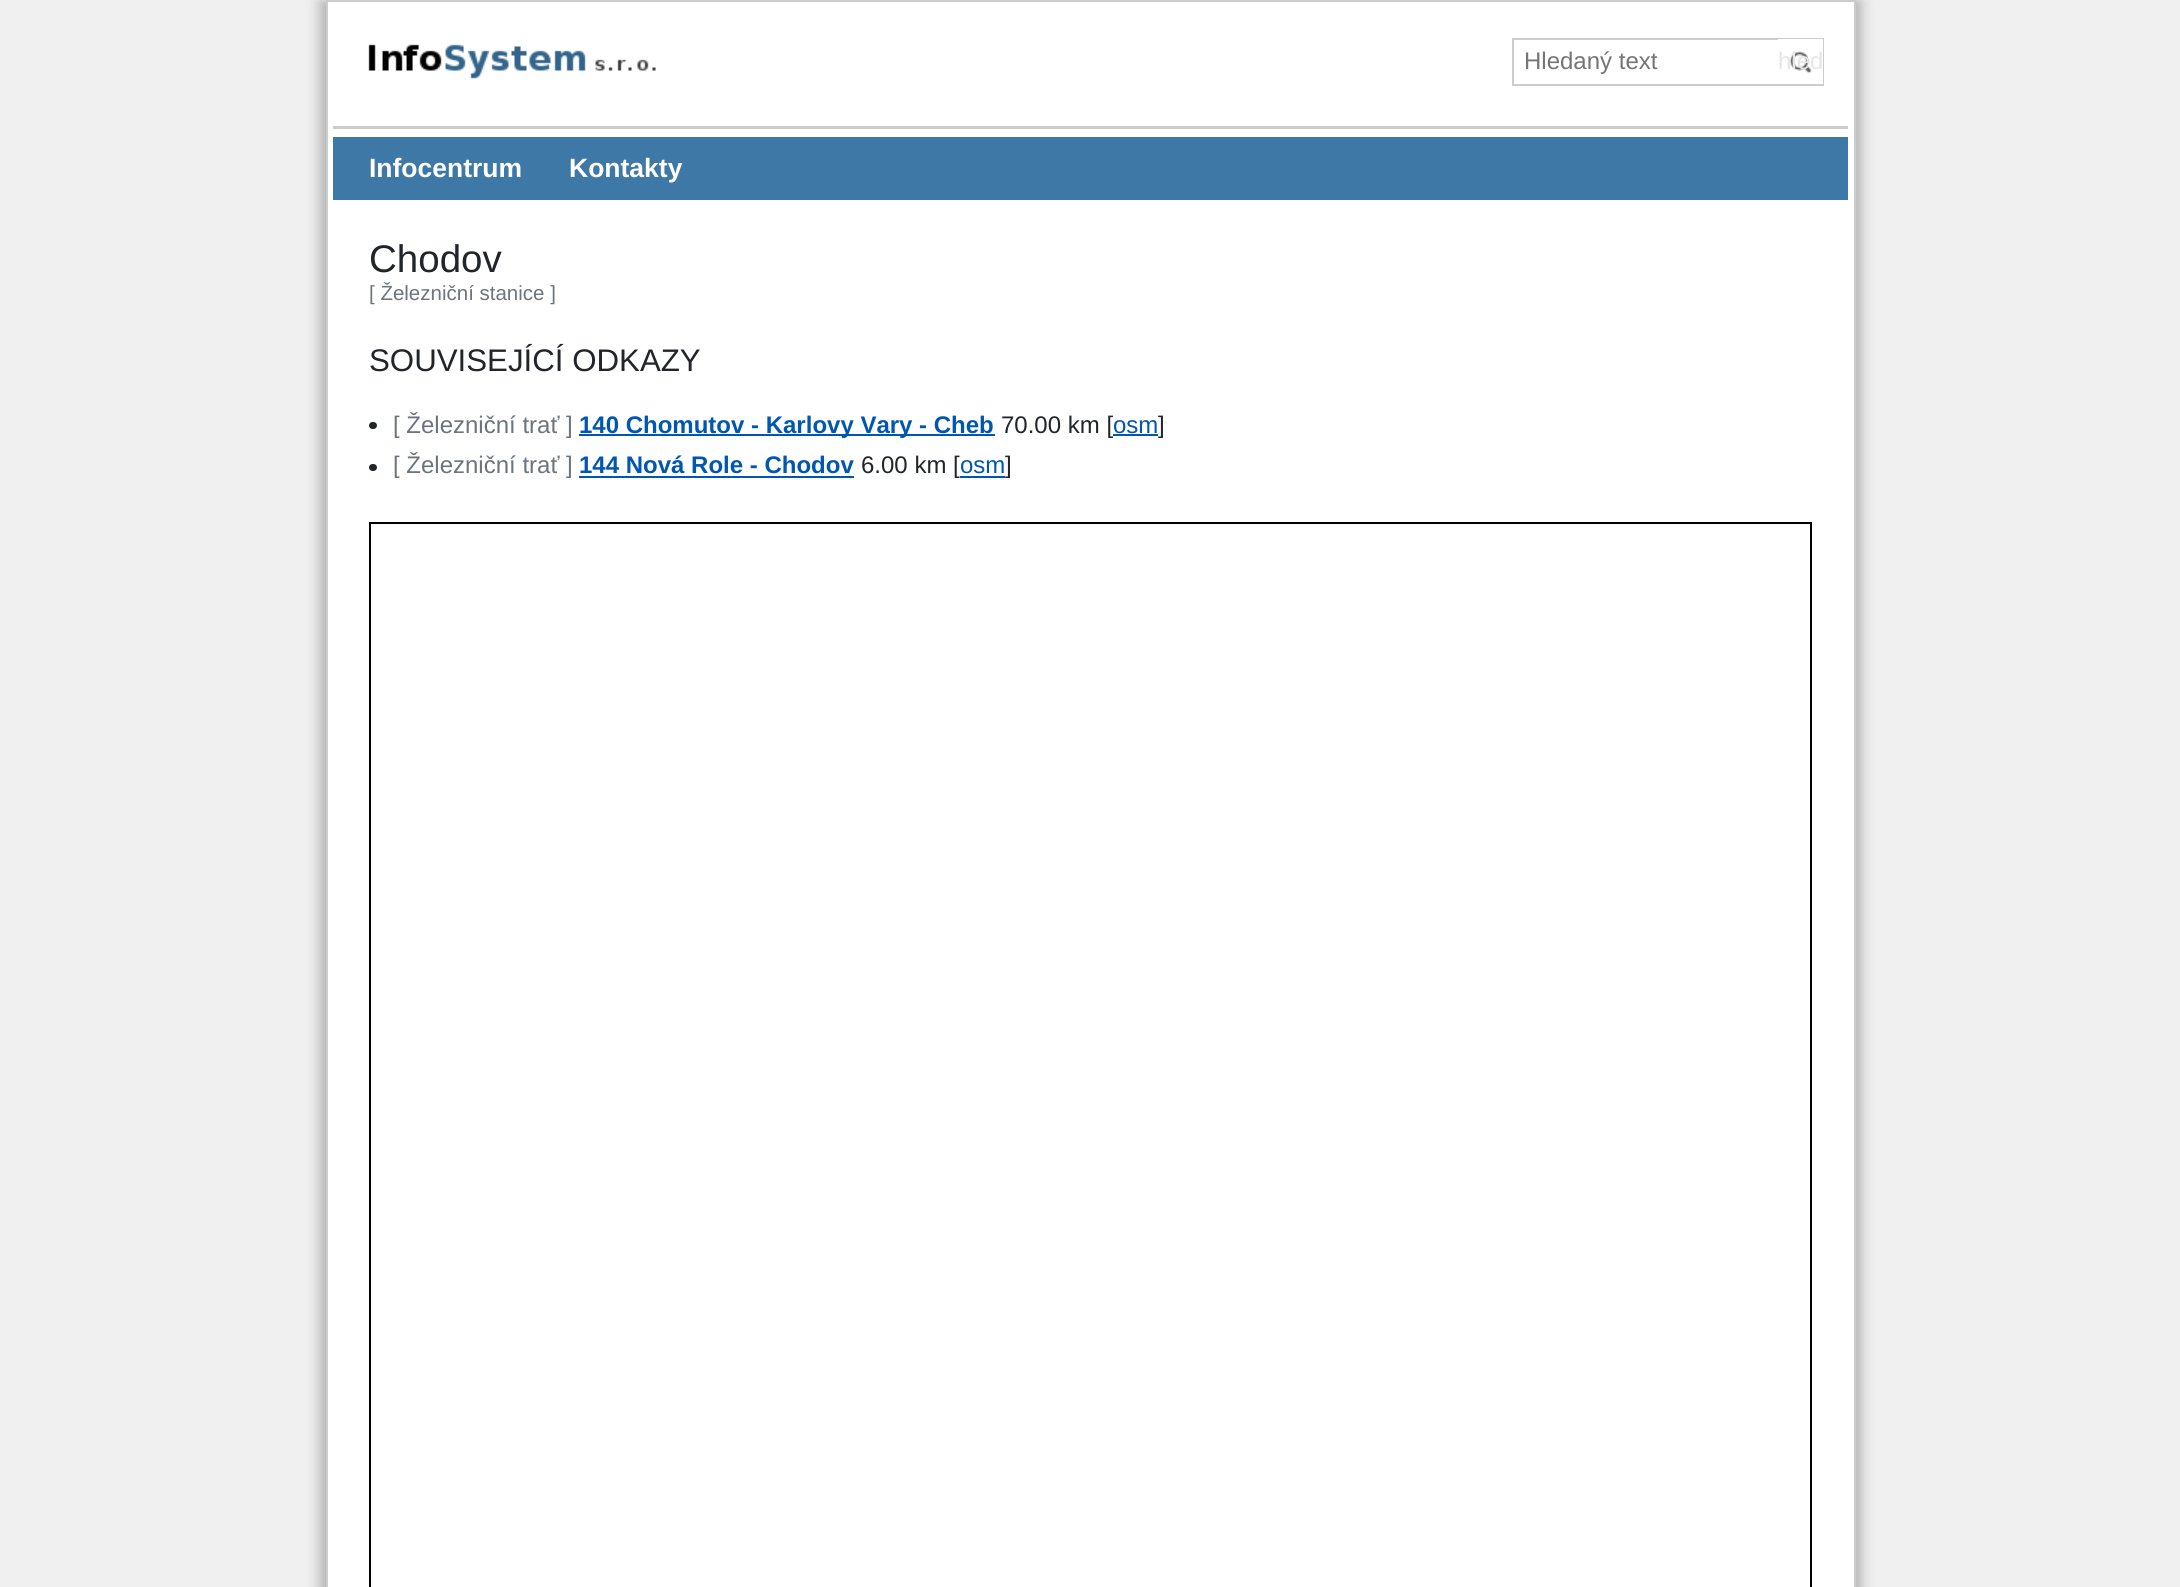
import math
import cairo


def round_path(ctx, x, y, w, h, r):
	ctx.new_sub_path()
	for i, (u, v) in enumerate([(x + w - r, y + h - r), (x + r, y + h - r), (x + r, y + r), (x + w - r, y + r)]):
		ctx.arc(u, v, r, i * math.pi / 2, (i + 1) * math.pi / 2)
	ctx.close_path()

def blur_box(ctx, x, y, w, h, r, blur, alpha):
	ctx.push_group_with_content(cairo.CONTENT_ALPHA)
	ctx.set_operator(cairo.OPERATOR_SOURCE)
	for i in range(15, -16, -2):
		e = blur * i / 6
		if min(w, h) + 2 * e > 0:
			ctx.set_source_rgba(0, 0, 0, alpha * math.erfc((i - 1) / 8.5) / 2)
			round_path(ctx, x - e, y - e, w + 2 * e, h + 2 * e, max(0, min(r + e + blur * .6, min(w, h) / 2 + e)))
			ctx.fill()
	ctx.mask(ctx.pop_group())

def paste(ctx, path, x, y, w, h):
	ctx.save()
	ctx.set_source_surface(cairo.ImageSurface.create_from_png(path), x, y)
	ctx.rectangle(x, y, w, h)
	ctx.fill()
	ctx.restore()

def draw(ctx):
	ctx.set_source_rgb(0.941, 0.941, 0.941)
	ctx.paint()
	ctx.set_source_rgb(0, 0, 0)
	blur_box(ctx, 321, 2, 1539, 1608, 0, 7.5, 0.3)
	ctx.set_source_rgb(1, 1, 1)
	ctx.rectangle(327, 1, 1528, 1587)
	ctx.fill_preserve()
	ctx.set_source_rgb(0.8, 0.8, 0.8)
	ctx.stroke()
	ctx.rectangle(333, 126, 1515, 3)
	ctx.fill()
	paste(ctx, 'media/1.png', 368, 44, 288, 35)
	ctx.rectangle(1513, 39, 310, 46)
	ctx.stroke()
	ctx.select_font_face('Liberation Sans')
	ctx.set_font_size(24)
	ctx.set_source_rgb(0.459, 0.459, 0.459)
	ctx.move_to(1524, 69)
	ctx.show_text('Hledaný text')
	ctx.set_source_rgb(1, 1, 1)
	ctx.rectangle(1778, 39, 45, 45)
	ctx.fill()
	paste(ctx, 'media/2.png', 1789, 51, 23, 23)
	ctx.set_source_rgb(0.902, 0.902, 0.902)
	ctx.move_to(1778, 69)
	ctx.show_text('hled')
	ctx.set_source_rgb(0.243, 0.471, 0.651)
	ctx.rectangle(333, 137, 1515, 63)
	ctx.fill()
	ctx.select_font_face('Liberation Sans', cairo.FONT_SLANT_NORMAL, cairo.FONT_WEIGHT_BOLD)
	ctx.set_font_size(26.5)
	ctx.set_source_rgb(1, 1, 1)
	ctx.move_to(369, 177)
	ctx.show_text('Infocentrum')
	ctx.move_to(569, 177)
	ctx.show_text('Kontakty')
	ctx.select_font_face('Liberation Sans')
	ctx.set_font_size(38.5)
	ctx.set_source_rgb(0.129, 0.145, 0.161)
	ctx.move_to(369, 272)
	ctx.show_text('Chodov')
	ctx.set_font_size(20.5)
	ctx.set_source_rgb(0.424, 0.459, 0.49)
	ctx.move_to(369, 300)
	ctx.show_text('[ Železniční stanice ]')
	ctx.set_font_size(31.25)
	ctx.set_source_rgb(0.129, 0.145, 0.161)
	ctx.move_to(369, 371)
	ctx.show_text('SOUVISEJÍCÍ ODKAZY')
	round_path(ctx, 369, 422, 8, 7, 3.5)
	ctx.fill()
	ctx.set_font_size(24)
	ctx.set_source_rgb(0.424, 0.459, 0.49)
	ctx.move_to(393, 433)
	ctx.show_text('[ Železniční trať ]')
	ctx.set_source_rgb(0, 0.337, 0.702)
	ctx.rectangle(579, 434, 416, 2)
	ctx.fill()
	ctx.select_font_face('Liberation Sans', cairo.FONT_SLANT_NORMAL, cairo.FONT_WEIGHT_BOLD)
	ctx.move_to(579, 433)
	ctx.show_text('140 Chomutov - Karlovy Vary - Cheb')
	ctx.select_font_face('Liberation Sans')
	ctx.set_source_rgb(0.129, 0.145, 0.161)
	ctx.move_to(1001, 433)
	ctx.show_text('70.00 km [')
	ctx.set_source_rgb(0, 0.337, 0.702)
	ctx.move_to(1113, 433)
	ctx.show_text('osm')
	ctx.rectangle(1113, 434, 45, 2)
	ctx.fill()
	ctx.set_source_rgb(0.129, 0.145, 0.161)
	ctx.move_to(1158, 433)
	ctx.show_text(']')
	round_path(ctx, 369, 464, 8, 7, 3.5)
	ctx.fill()
	ctx.set_source_rgb(0.424, 0.459, 0.49)
	ctx.move_to(393, 473)
	ctx.show_text('[ Železniční trať ]')
	ctx.select_font_face('Liberation Sans', cairo.FONT_SLANT_NORMAL, cairo.FONT_WEIGHT_BOLD)
	ctx.set_source_rgb(0, 0.337, 0.702)
	ctx.move_to(579, 473)
	ctx.show_text('144 Nová Role - Chodov')
	ctx.rectangle(579, 476, 275, 2)
	ctx.fill()
	ctx.select_font_face('Liberation Sans')
	ctx.set_source_rgb(0.129, 0.145, 0.161)
	ctx.move_to(861, 473)
	ctx.show_text('6.00 km [')
	ctx.set_source_rgb(0, 0.337, 0.702)
	ctx.move_to(960, 473)
	ctx.show_text('osm')
	ctx.rectangle(960, 476, 45, 2)
	ctx.fill()
	ctx.set_source_rgb(0.129, 0.145, 0.161)
	ctx.move_to(1005, 473)
	ctx.show_text(']')
	ctx.rectangle(370, 523, 1441, 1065)
	ctx.set_source_rgb(0, 0, 0)
	ctx.stroke()


surface = cairo.ImageSurface(cairo.FORMAT_RGB24, 2180, 1587)
ctx = cairo.Context(surface)
options = cairo.FontOptions()
options.set_hint_metrics(cairo.HINT_METRICS_OFF)
options.set_hint_style(cairo.HINT_STYLE_NONE)
ctx.set_font_options(options)
ctx.set_miter_limit(4)
draw(ctx)
surface.write_to_png('image.png')
